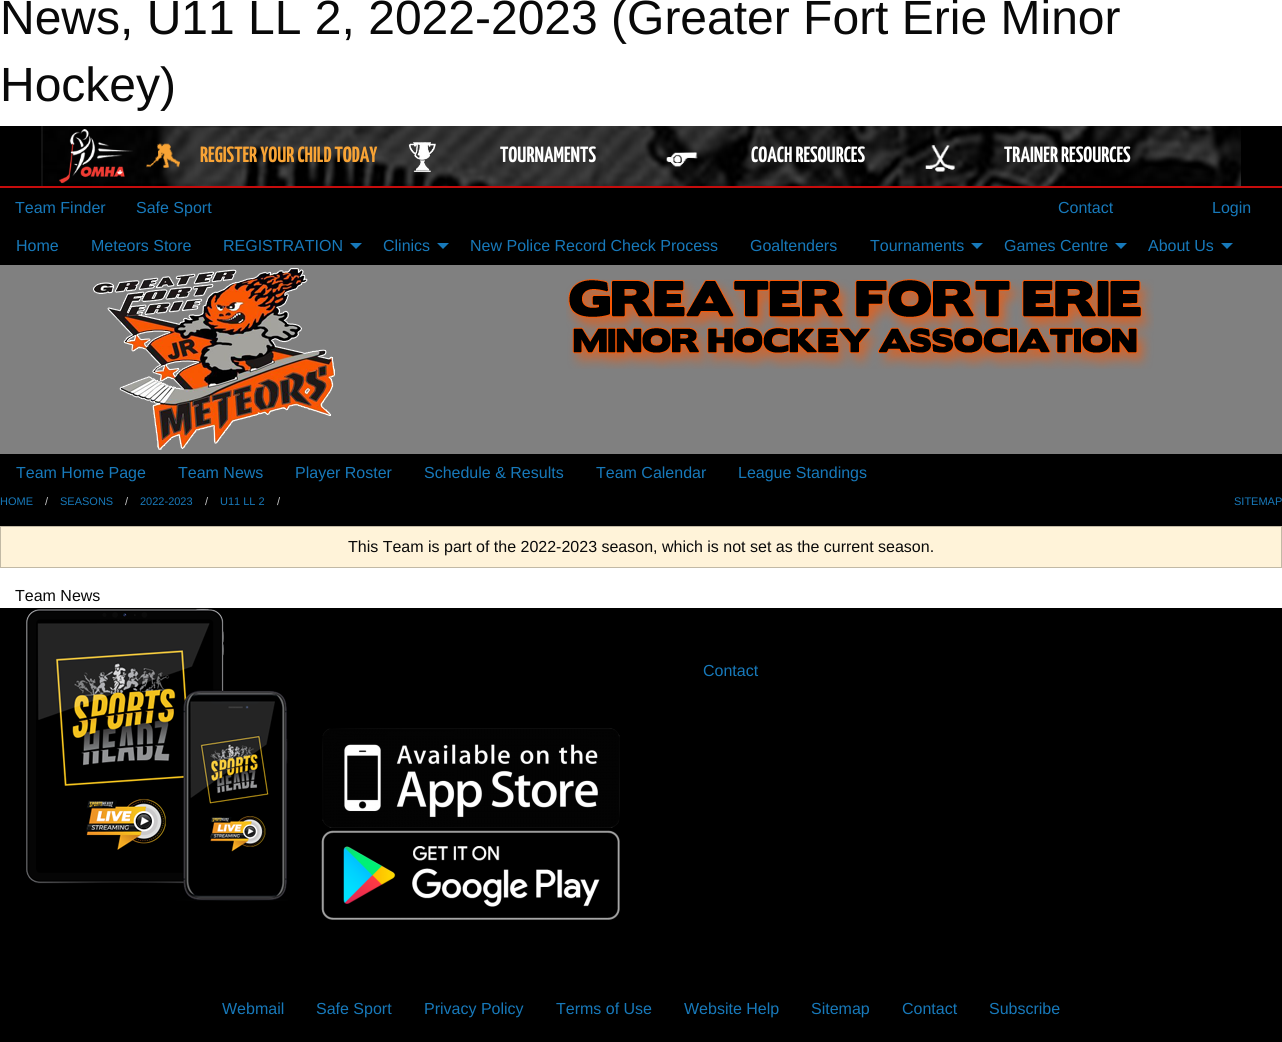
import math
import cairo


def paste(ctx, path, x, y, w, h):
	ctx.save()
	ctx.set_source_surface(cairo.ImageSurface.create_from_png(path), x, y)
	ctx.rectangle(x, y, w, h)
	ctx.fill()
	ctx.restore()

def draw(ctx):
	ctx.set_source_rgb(1, 1, 1)
	ctx.paint()
	ctx.select_font_face('Liberation Sans')
	ctx.set_font_size(48)
	ctx.set_source_rgb(0.039, 0.039, 0.039)
	ctx.move_to(0, 34)
	ctx.show_text('News, U11 LL 2, 2022-2023 (Greater Fort Erie Minor')
	ctx.move_to(0, 101)
	ctx.show_text('Hockey)')
	ctx.set_source_rgb(0, 0, 0)
	ctx.rectangle(0, 126, 1282, 60)
	ctx.fill()
	ctx.set_source_rgb(0.776, 0.047, 0.047)
	ctx.rectangle(0, 186, 1282, 2)
	ctx.fill()
	paste(ctx, 'media/1.png', 41, 126, 1200, 60)
	paste(ctx, 'media/2.png', 59, 129, 74, 55)
	paste(ctx, 'media/3.png', 146, 143, 34, 25)
	ctx.select_font_face('Yanone Kaffeesatz ExtraLight')
	ctx.set_font_size(22)
	ctx.set_source_rgb(0.976, 0.643, 0.208)
	ctx.move_to(200, 162)
	ctx.show_text('REGISTER YOUR CHILD TODAY')
	paste(ctx, 'media/4.png', 408, 142, 28, 31)
	ctx.set_source_rgb(1, 1, 1)
	ctx.move_to(500, 162)
	ctx.show_text('TOURNAMENTS')
	paste(ctx, 'media/5.png', 666, 152, 32, 15)
	ctx.move_to(751, 162)
	ctx.show_text('COACH RESOURCES')
	paste(ctx, 'media/6.png', 925, 145, 30, 27)
	ctx.move_to(1004, 162)
	ctx.show_text('TRAINER RESOURCES')
	ctx.set_source_rgb(0, 0, 0)
	ctx.rectangle(0, 188, 1282, 854)
	ctx.fill()
	ctx.select_font_face('Liberation Sans')
	ctx.set_font_size(16)
	ctx.set_source_rgb(0.09, 0.475, 0.729)
	for x, y, s in [
		(15, 213, 'Team Finder'),
		(136, 213, 'Safe Sport'),
		(1058, 213, 'Contact'),
		(1212, 213, 'Login'),
		(16, 251, 'Home'),
		(91, 251, 'Meteors Store'),
		(223, 251, 'REGISTRATION'),
	]:
		ctx.move_to(x, y)
		ctx.show_text(s)
	ctx.new_path()
	ctx.move_to(350, 243)
	ctx.line_to(362, 243)
	ctx.line_to(356, 249)
	ctx.close_path()
	ctx.fill()
	ctx.move_to(383, 251)
	ctx.show_text('Clinics')
	ctx.new_path()
	ctx.move_to(437, 243)
	ctx.line_to(449, 243)
	ctx.line_to(443, 249)
	ctx.close_path()
	ctx.fill()
	for x, y, s in [
		(470, 251, 'New Police Record Check Process'),
		(750, 251, 'Goaltenders'),
		(870, 251, 'Tournaments'),
	]:
		ctx.move_to(x, y)
		ctx.show_text(s)
	ctx.new_path()
	ctx.move_to(971, 243)
	ctx.line_to(983, 243)
	ctx.line_to(977, 249)
	ctx.close_path()
	ctx.fill()
	ctx.move_to(1004, 251)
	ctx.show_text('Games Centre')
	ctx.new_path()
	ctx.move_to(1115, 243)
	ctx.line_to(1127, 243)
	ctx.line_to(1121, 249)
	ctx.close_path()
	ctx.fill()
	ctx.move_to(1148, 251)
	ctx.show_text('About Us')
	ctx.new_path()
	ctx.move_to(1221, 243)
	ctx.line_to(1233, 243)
	ctx.line_to(1227, 249)
	ctx.close_path()
	ctx.fill()
	ctx.set_source_rgb(0.502, 0.502, 0.502)
	ctx.rectangle(0, 265, 1282, 189)
	ctx.fill()
	paste(ctx, 'media/7.png', 93, 268, 242, 182)
	paste(ctx, 'media/8.png', 566, 279, 588, 90)
	ctx.set_source_rgb(0.09, 0.475, 0.729)
	for x, y, s in [
		(16, 478, 'Team Home Page'),
		(178, 478, 'Team News'),
		(295, 478, 'Player Roster'),
		(424, 478, 'Schedule & Results'),
		(596, 478, 'Team Calendar'),
		(738, 478, 'League Standings'),
	]:
		ctx.move_to(x, y)
		ctx.show_text(s)
	ctx.set_font_size(11)
	ctx.move_to(0, 505)
	ctx.show_text('HOME')
	ctx.set_source_rgb(0.792, 0.792, 0.792)
	ctx.move_to(45, 505)
	ctx.show_text('/')
	ctx.set_source_rgb(0.09, 0.475, 0.729)
	ctx.move_to(60, 505)
	ctx.show_text('SEASONS')
	ctx.set_source_rgb(0.792, 0.792, 0.792)
	ctx.move_to(125, 505)
	ctx.show_text('/')
	ctx.set_source_rgb(0.09, 0.475, 0.729)
	ctx.move_to(140, 505)
	ctx.show_text('2022-2023')
	ctx.set_source_rgb(0.792, 0.792, 0.792)
	ctx.move_to(205, 505)
	ctx.show_text('/')
	ctx.set_source_rgb(0.09, 0.475, 0.729)
	ctx.move_to(220, 505)
	ctx.show_text('U11 LL 2')
	ctx.set_source_rgb(0.792, 0.792, 0.792)
	ctx.move_to(277, 505)
	ctx.show_text('/')
	ctx.set_source_rgb(0.09, 0.475, 0.729)
	ctx.move_to(1234, 505)
	ctx.show_text('SITEMAP')
	ctx.set_source_rgb(1, 1, 1)
	ctx.rectangle(0, 568, 1282, 40)
	ctx.fill()
	ctx.set_source_rgb(1, 0.953, 0.851)
	ctx.rectangle(0.5, 526.5, 1281, 41)
	ctx.fill_preserve()
	ctx.set_source_rgb(0.761, 0.725, 0.647)
	ctx.set_line_width(1)
	ctx.stroke()
	ctx.set_font_size(16)
	ctx.set_source_rgb(0.039, 0.039, 0.039)
	ctx.move_to(348, 552)
	ctx.show_text('This Team is part of the 2022-2023 season, which is not set as the current season.')
	ctx.move_to(15, 601)
	ctx.show_text('Team News')
	paste(ctx, 'media/9.png', 26, 608, 262, 293)
	paste(ctx, 'media/10.png', 322, 728, 298, 100)
	paste(ctx, 'media/11.png', 321, 830, 299, 90)
	ctx.set_source_rgb(0.09, 0.475, 0.729)
	for x, y, s in [
		(703, 676, 'Contact'),
		(222, 1014, 'Webmail'),
		(316, 1014, 'Safe Sport'),
		(424, 1014, 'Privacy Policy'),
		(556, 1014, 'Terms of Use'),
		(684, 1014, 'Website Help'),
		(811, 1014, 'Sitemap'),
		(902, 1014, 'Contact'),
		(989, 1014, 'Subscribe'),
	]:
		ctx.move_to(x, y)
		ctx.show_text(s)


surface = cairo.ImageSurface(cairo.FORMAT_RGB24, 1282, 1042)
ctx = cairo.Context(surface)
options = cairo.FontOptions()
options.set_hint_metrics(cairo.HINT_METRICS_OFF)
options.set_hint_style(cairo.HINT_STYLE_NONE)
ctx.set_font_options(options)
ctx.set_miter_limit(4)
draw(ctx)
surface.write_to_png('image.png')
